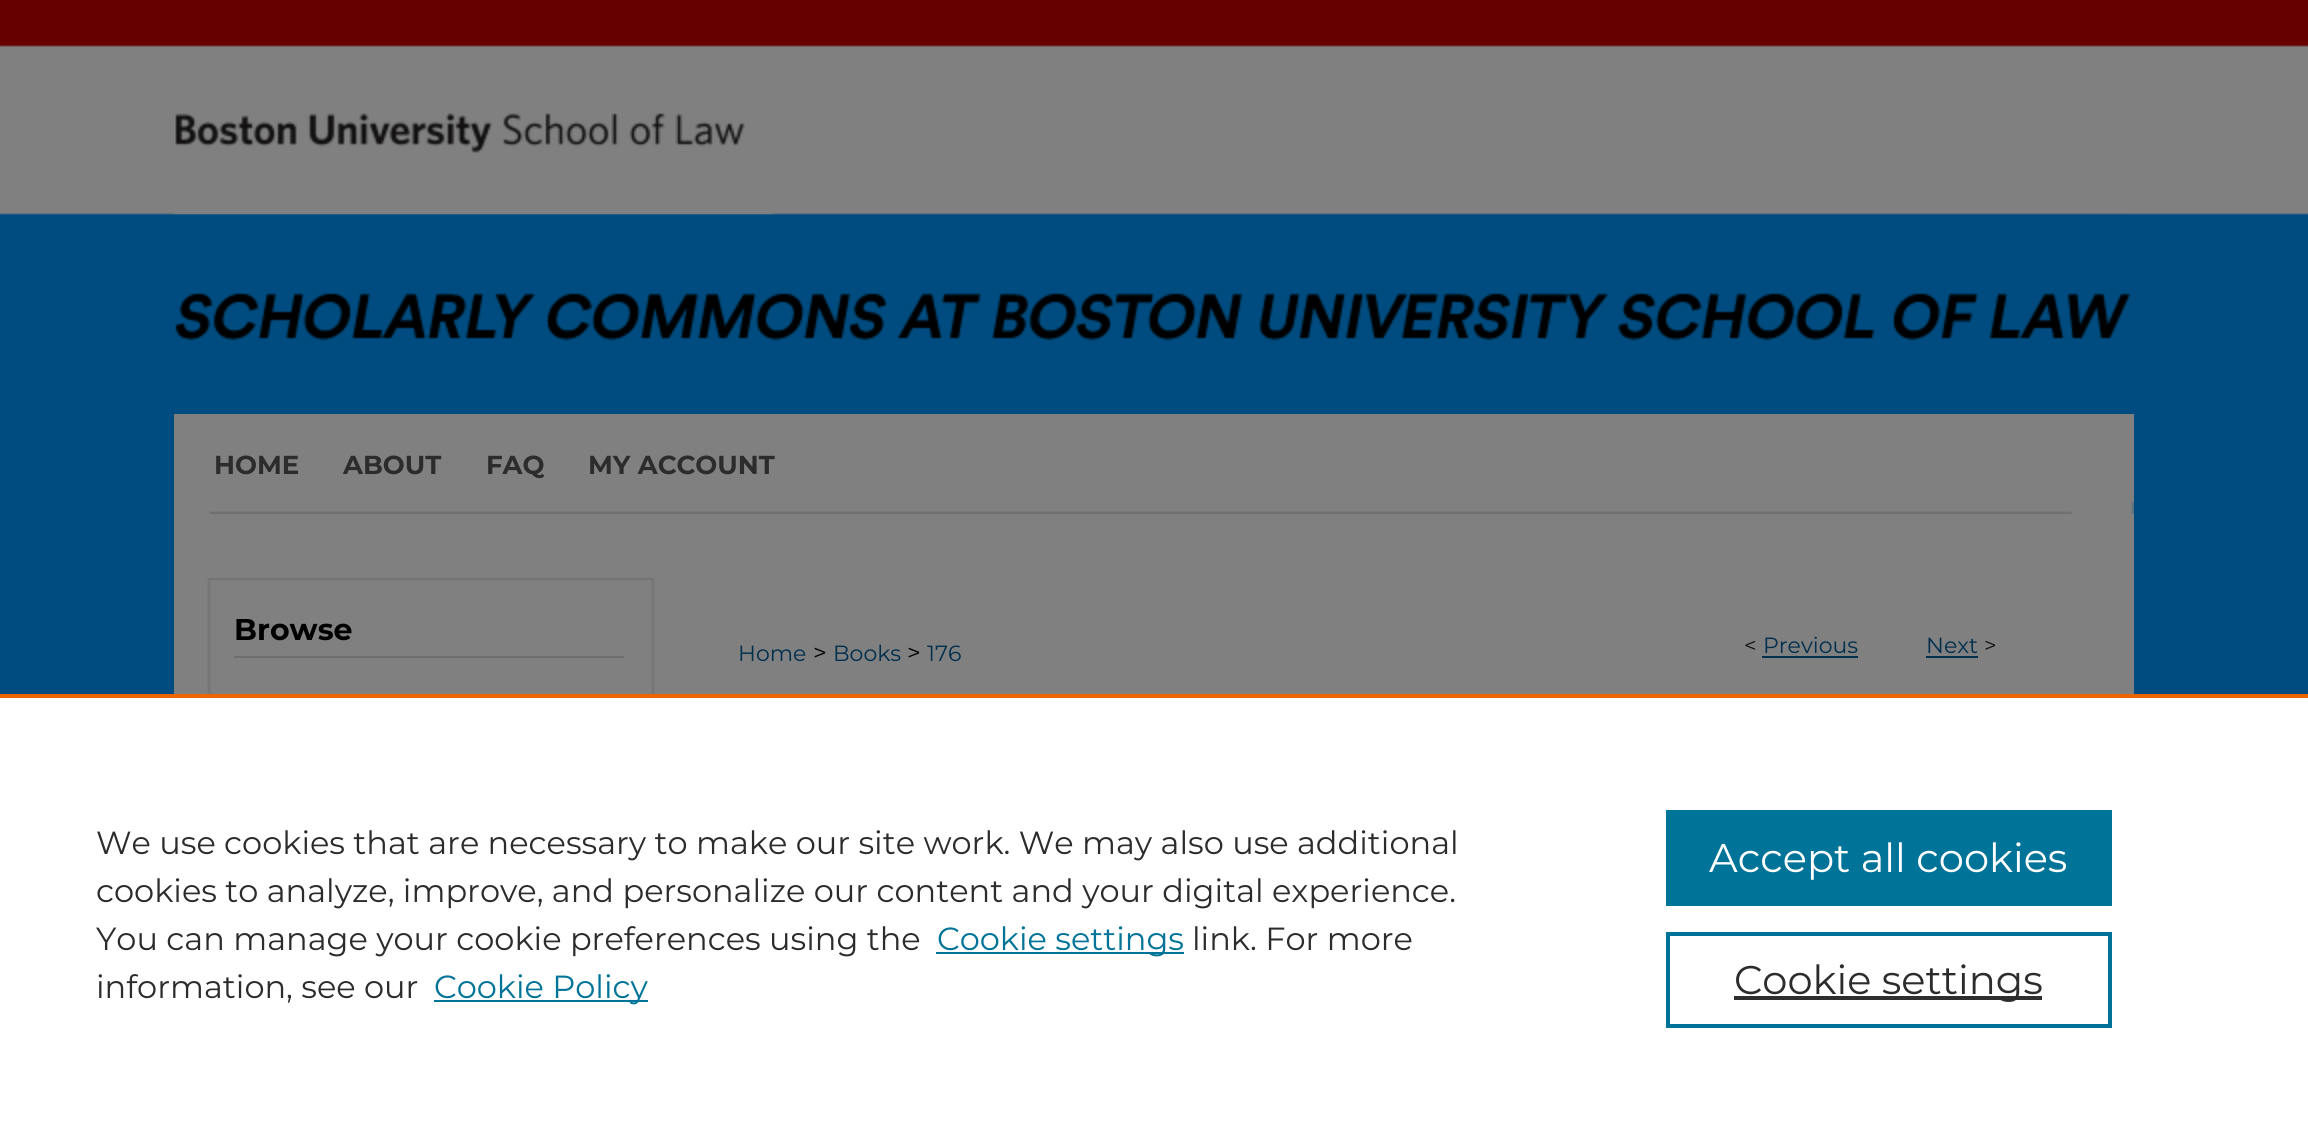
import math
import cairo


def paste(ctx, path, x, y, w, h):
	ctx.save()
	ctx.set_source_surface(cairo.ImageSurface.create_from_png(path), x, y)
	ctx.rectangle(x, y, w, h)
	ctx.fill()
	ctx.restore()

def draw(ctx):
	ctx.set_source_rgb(1, 1, 1)
	ctx.paint()
	paste(ctx, 'media/1.png', 0, 0, 2308, 694)
	paste(ctx, 'media/2.png', 174, 0, 1960, 414)
	paste(ctx, 'media/3.png', 174, 113, 598, 101)
	ctx.set_source_rgb(0.502, 0.502, 0.502)
	ctx.rectangle(174, 414, 1960, 164)
	ctx.fill()
	paste(ctx, 'media/4.png', 209, 501, 1925, 13)
	ctx.select_font_face('Montserrat', cairo.FONT_SLANT_NORMAL, cairo.FONT_WEIGHT_BOLD)
	ctx.set_font_size(26)
	ctx.set_source_rgb(0.173, 0.173, 0.173)
	for x, y, s in [
		(214, 474, 'HOME'),
		(343, 474, 'ABOUT'),
		(486, 474, 'FAQ'),
		(588, 474, 'MY ACCOUNT'),
	]:
		ctx.move_to(x, y)
		ctx.show_text(s)
	paste(ctx, 'media/5.png', 174, 578, 500, 116)
	ctx.set_source_rgb(0.431, 0.431, 0.427)
	ctx.rectangle(234, 656, 390, 2)
	ctx.fill()
	ctx.set_font_size(30)
	ctx.set_source_rgb(0, 0, 0)
	ctx.move_to(234, 640)
	ctx.show_text('Browse')
	ctx.set_source_rgb(0.502, 0.502, 0.502)
	ctx.rectangle(674, 578, 1460, 116)
	ctx.fill()
	ctx.select_font_face('Montserrat')
	ctx.set_font_size(22)
	ctx.set_source_rgb(0, 0.18, 0.302)
	ctx.move_to(738, 661)
	ctx.show_text('Home')
	ctx.set_font_size(24)
	ctx.set_source_rgb(0, 0, 0)
	ctx.move_to(813, 661)
	ctx.show_text('>')
	ctx.set_font_size(22)
	ctx.set_source_rgb(0, 0.18, 0.302)
	ctx.move_to(833, 661)
	ctx.show_text('Books')
	ctx.set_font_size(24)
	ctx.set_source_rgb(0, 0, 0)
	ctx.move_to(907, 661)
	ctx.show_text('>')
	ctx.set_font_size(22)
	ctx.set_source_rgb(0, 0.18, 0.302)
	ctx.move_to(927, 661)
	ctx.show_text('176')
	ctx.set_source_rgb(0.067, 0.067, 0.067)
	ctx.move_to(1744, 653)
	ctx.show_text('<')
	ctx.set_source_rgb(0, 0.18, 0.302)
	ctx.move_to(1763, 653)
	ctx.show_text('Previous')
	ctx.rectangle(1762, 656, 96, 2)
	ctx.fill()
	ctx.move_to(1926, 653)
	ctx.show_text('Next')
	ctx.rectangle(1926, 656, 52, 2)
	ctx.fill()
	ctx.set_source_rgb(0.067, 0.067, 0.067)
	ctx.move_to(1984, 653)
	ctx.show_text('>')
	ctx.set_source_rgb(0.922, 0.396, 0)
	ctx.rectangle(0, 694, 2308, 4)
	ctx.fill()
	ctx.set_font_size(32)
	ctx.set_source_rgb(0.173, 0.173, 0.173)
	for x, y, s in [
		(96, 854, 'We use cookies that are necessary to make our site work. We may also use additional'),
		(96, 902, 'cookies to analyze, improve, and personalize our content and your digital experience.'),
		(96, 950, 'You can manage your cookie preferences using the'),
	]:
		ctx.move_to(x, y)
		ctx.show_text(s)
	ctx.set_source_rgb(0, 0.451, 0.596)
	ctx.rectangle(936, 952, 248, 2)
	ctx.fill()
	ctx.move_to(937, 950)
	ctx.show_text('Cookie settings')
	ctx.set_source_rgb(0.173, 0.173, 0.173)
	ctx.move_to(1192, 950)
	ctx.show_text('link. For more')
	ctx.move_to(96, 998)
	ctx.show_text('information, see our')
	ctx.set_source_rgb(0, 0.451, 0.596)
	ctx.rectangle(434, 1000, 214, 2)
	ctx.fill()
	ctx.move_to(434, 998)
	ctx.show_text('Cookie Policy')
	ctx.rectangle(1666, 810, 446, 96)
	ctx.fill()
	ctx.set_font_size(40)
	ctx.set_source_rgb(1, 1, 1)
	ctx.move_to(1709, 872)
	ctx.show_text('Accept all cookies')
	ctx.rectangle(1668, 934, 442, 92)
	ctx.set_source_rgb(0, 0.451, 0.596)
	ctx.set_line_width(4)
	ctx.stroke()
	ctx.set_source_rgb(0.18, 0.18, 0.18)
	ctx.rectangle(1734, 996, 308, 4)
	ctx.fill()
	ctx.set_source_rgb(0.173, 0.173, 0.173)
	ctx.move_to(1734, 994)
	ctx.show_text('Cookie settings')


surface = cairo.ImageSurface(cairo.FORMAT_RGB24, 2308, 1133)
ctx = cairo.Context(surface)
options = cairo.FontOptions()
options.set_hint_metrics(cairo.HINT_METRICS_OFF)
options.set_hint_style(cairo.HINT_STYLE_NONE)
ctx.set_font_options(options)
ctx.set_miter_limit(4)
draw(ctx)
surface.write_to_png('image.png')
